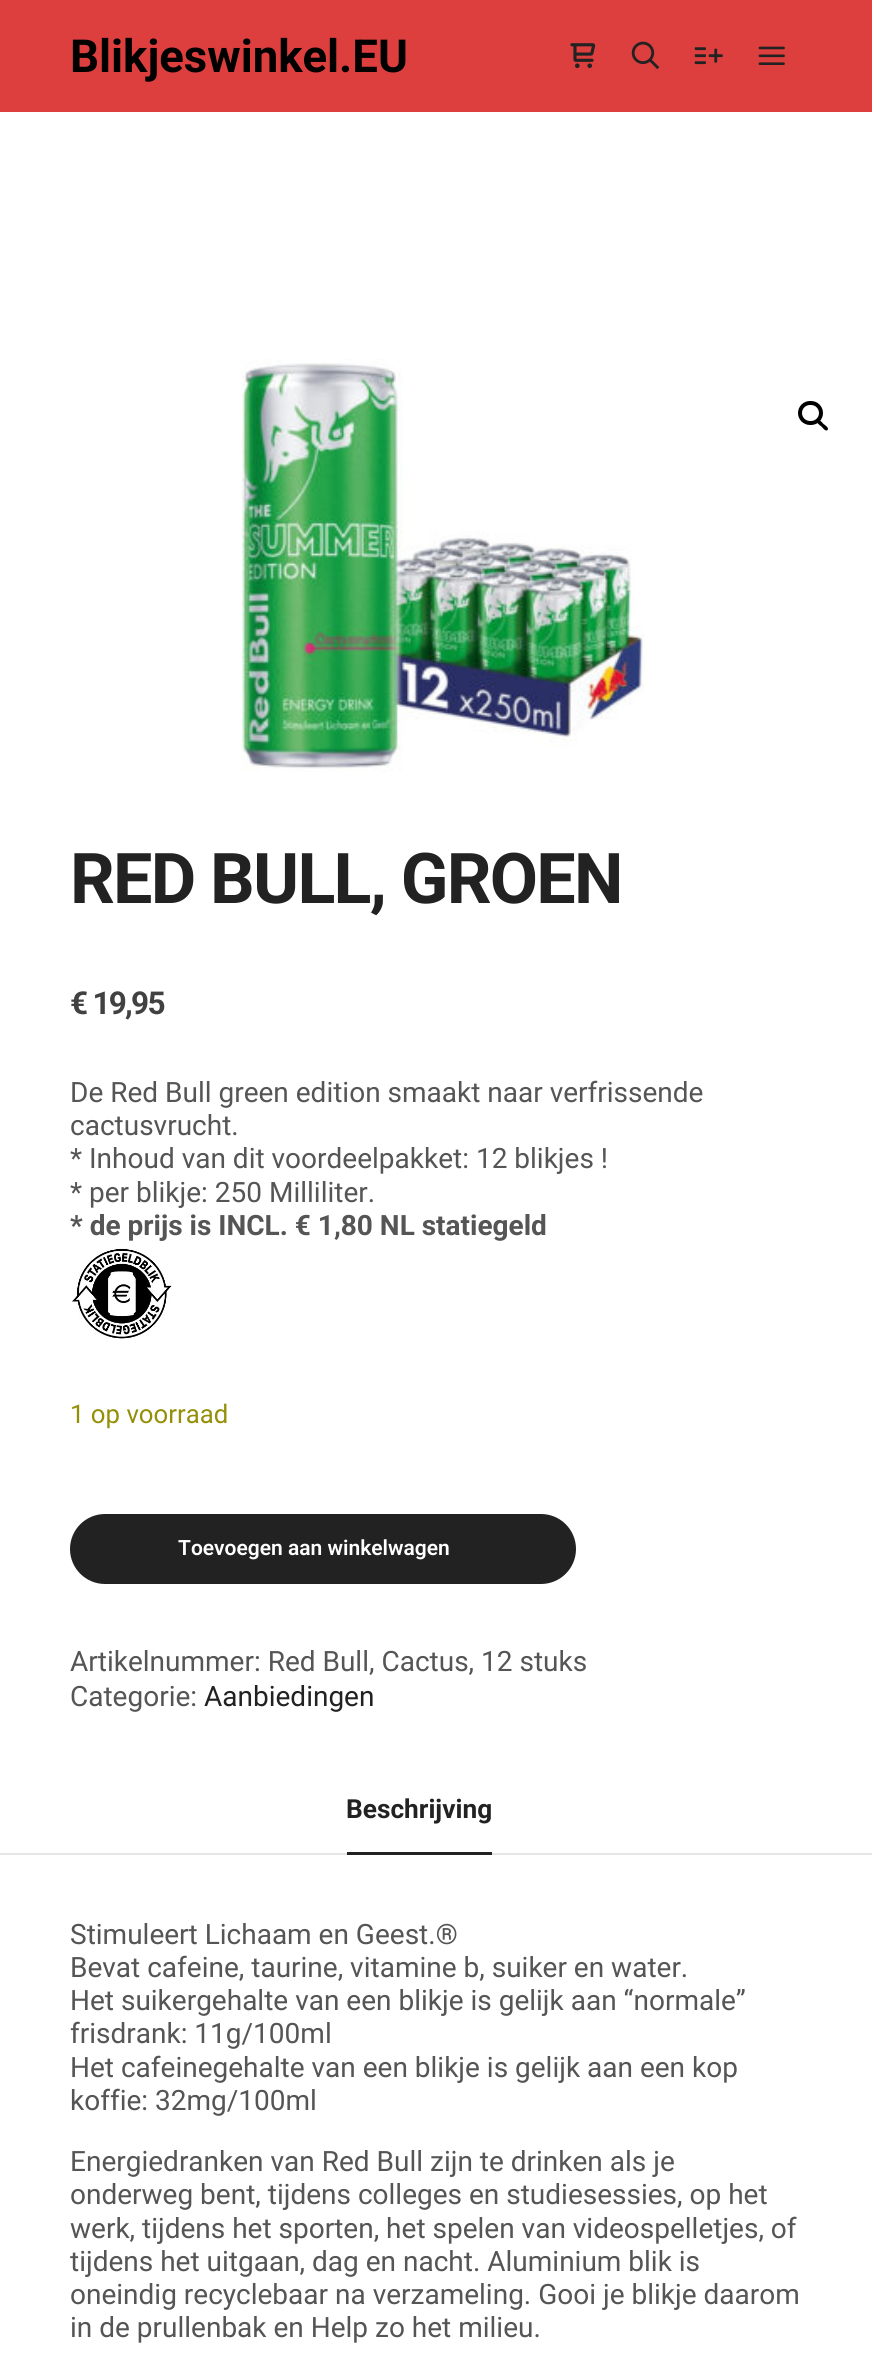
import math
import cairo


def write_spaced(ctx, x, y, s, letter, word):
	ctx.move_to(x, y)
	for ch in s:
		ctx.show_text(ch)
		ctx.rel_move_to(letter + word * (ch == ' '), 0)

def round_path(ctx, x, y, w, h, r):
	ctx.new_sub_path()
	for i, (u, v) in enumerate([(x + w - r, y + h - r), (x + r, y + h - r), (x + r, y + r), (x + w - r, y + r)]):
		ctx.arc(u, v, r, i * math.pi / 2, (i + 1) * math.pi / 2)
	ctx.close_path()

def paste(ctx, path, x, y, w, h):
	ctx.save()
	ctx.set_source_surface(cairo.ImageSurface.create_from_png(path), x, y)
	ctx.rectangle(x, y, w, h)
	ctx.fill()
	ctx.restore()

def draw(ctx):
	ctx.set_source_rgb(1, 1, 1)
	ctx.paint()
	ctx.set_source_rgb(0.867, 0.243, 0.243)
	ctx.rectangle(0, 0, 872, 112)
	ctx.fill()
	ctx.select_font_face('Roboto', cairo.FONT_SLANT_NORMAL, cairo.FONT_WEIGHT_BOLD)
	ctx.set_font_size(45.5)
	ctx.set_source_rgb(0, 0, 0)
	ctx.move_to(70, 72)
	ctx.show_text('Blikjeswinkel.EU')
	paste(ctx, 'media/1.png', 570, 43, 26, 26)
	paste(ctx, 'media/2.png', 631, 41, 29, 29)
	paste(ctx, 'media/3.png', 694, 47, 29, 18)
	paste(ctx, 'media/4.png', 758, 46, 27, 19)
	paste(ctx, 'media/5.png', 241, 359, 404, 413)
	round_path(ctx, 800, 403, 21, 20, 10)
	ctx.set_line_width(4)
	ctx.stroke()
	ctx.new_path()
	ctx.move_to(817.5, 420.5)
	ctx.curve_to(819.5, 418.5, 822.5, 423, 823.5, 424)
	ctx.curve_to(825, 425, 829.5, 428, 827.5, 430)
	ctx.curve_to(825.5, 432, 822.5, 427.5, 821.5, 426.5)
	ctx.curve_to(820, 425.5, 815.5, 422.5, 817.5, 420.5)
	ctx.close_path()
	ctx.fill()
	ctx.set_font_size(70)
	ctx.set_source_rgb(0.133, 0.133, 0.133)
	write_spaced(ctx, 70, 903, 'RED BULL, GROEN', -1.75, 0)
	ctx.set_font_size(31.5)
	ctx.set_source_rgb(0.255, 0.255, 0.255)
	write_spaced(ctx, 70, 1014, '€ 19,95', -1.75, 0)
	ctx.select_font_face('Roboto')
	ctx.set_font_size(28)
	ctx.set_source_rgb(0.333, 0.333, 0.333)
	for x, y, s in [
		(70, 1102, 'De Red Bull green edition smaakt naar verfrissende'),
		(70, 1135, 'cactusvrucht.'),
		(70, 1168, '* Inhoud van dit voordeelpakket: 12 blikjes !'),
		(70, 1202, '* per blikje: 250 Milliliter.'),
	]:
		ctx.move_to(x, y)
		ctx.show_text(s)
	ctx.select_font_face('Roboto', cairo.FONT_SLANT_NORMAL, cairo.FONT_WEIGHT_BOLD)
	ctx.move_to(70, 1235)
	ctx.show_text('* de prijs is INCL. € 1,80 NL statiegeld')
	paste(ctx, 'media/6.png', 72, 1248, 100, 91)
	ctx.select_font_face('Roboto')
	ctx.set_font_size(25.75)
	ctx.set_source_rgb(0.584, 0.557, 0.035)
	ctx.move_to(70, 1423)
	ctx.show_text('1 op voorraad')
	ctx.set_source_rgb(0.133, 0.133, 0.133)
	round_path(ctx, 70, 1514, 506, 70, 35)
	ctx.fill()
	ctx.select_font_face('Roboto SemiBold')
	ctx.set_font_size(21)
	ctx.set_source_rgb(1, 1, 1)
	ctx.move_to(178, 1555)
	ctx.show_text('Toevoegen aan winkelwagen')
	ctx.select_font_face('Roboto')
	ctx.set_font_size(28)
	ctx.set_source_rgb(0.333, 0.333, 0.333)
	ctx.move_to(70, 1671)
	ctx.show_text('Artikelnummer: Red Bull, Cactus, 12 stuks')
	ctx.move_to(70, 1706)
	ctx.show_text('Categorie:')
	ctx.set_source_rgb(0.133, 0.133, 0.133)
	ctx.move_to(204, 1706)
	ctx.show_text('Aanbiedingen')
	ctx.set_source_rgb(0.898, 0.898, 0.898)
	ctx.rectangle(0, 1853, 872, 2)
	ctx.fill()
	ctx.set_source_rgb(0.133, 0.133, 0.133)
	ctx.rectangle(347, 1852, 145, 3)
	ctx.fill()
	ctx.select_font_face('Roboto', cairo.FONT_SLANT_NORMAL, cairo.FONT_WEIGHT_BOLD)
	ctx.set_font_size(26.25)
	ctx.move_to(346, 1818)
	ctx.show_text('Beschrijving')
	ctx.select_font_face('Roboto')
	ctx.set_font_size(28)
	ctx.set_source_rgb(0.333, 0.333, 0.333)
	for x, y, s in [
		(70, 1944, 'Stimuleert Lichaam en Geest.®'),
		(70, 1977, 'Bevat cafeine, taurine, vitamine b, suiker en water.'),
		(70, 2010, 'Het suikergehalte van een blikje is gelijk aan “normale”'),
		(70, 2043, 'frisdrank: 11g/100ml'),
		(70, 2077, 'Het cafeinegehalte van een blikje is gelijk aan een kop'),
		(70, 2110, 'koffie: 32mg/100ml'),
		(70, 2171, 'Energiedranken van Red Bull zijn te drinken als je'),
		(70, 2204, 'onderweg bent, tijdens colleges en studiesessies, op het'),
		(70, 2238, 'werk, tijdens het sporten, het spelen van videospelletjes, of'),
		(70, 2271, 'tijdens het uitgaan, dag en nacht. Aluminium blik is'),
		(70, 2304, 'oneindig recyclebaar na verzameling. Gooi je blikje daarom'),
		(70, 2337, 'in de prullenbak en Help zo het milieu.'),
	]:
		ctx.move_to(x, y)
		ctx.show_text(s)


surface = cairo.ImageSurface(cairo.FORMAT_RGB24, 872, 2377)
ctx = cairo.Context(surface)
options = cairo.FontOptions()
options.set_hint_metrics(cairo.HINT_METRICS_OFF)
options.set_hint_style(cairo.HINT_STYLE_NONE)
ctx.set_font_options(options)
ctx.set_miter_limit(4)
draw(ctx)
surface.write_to_png('image.png')
